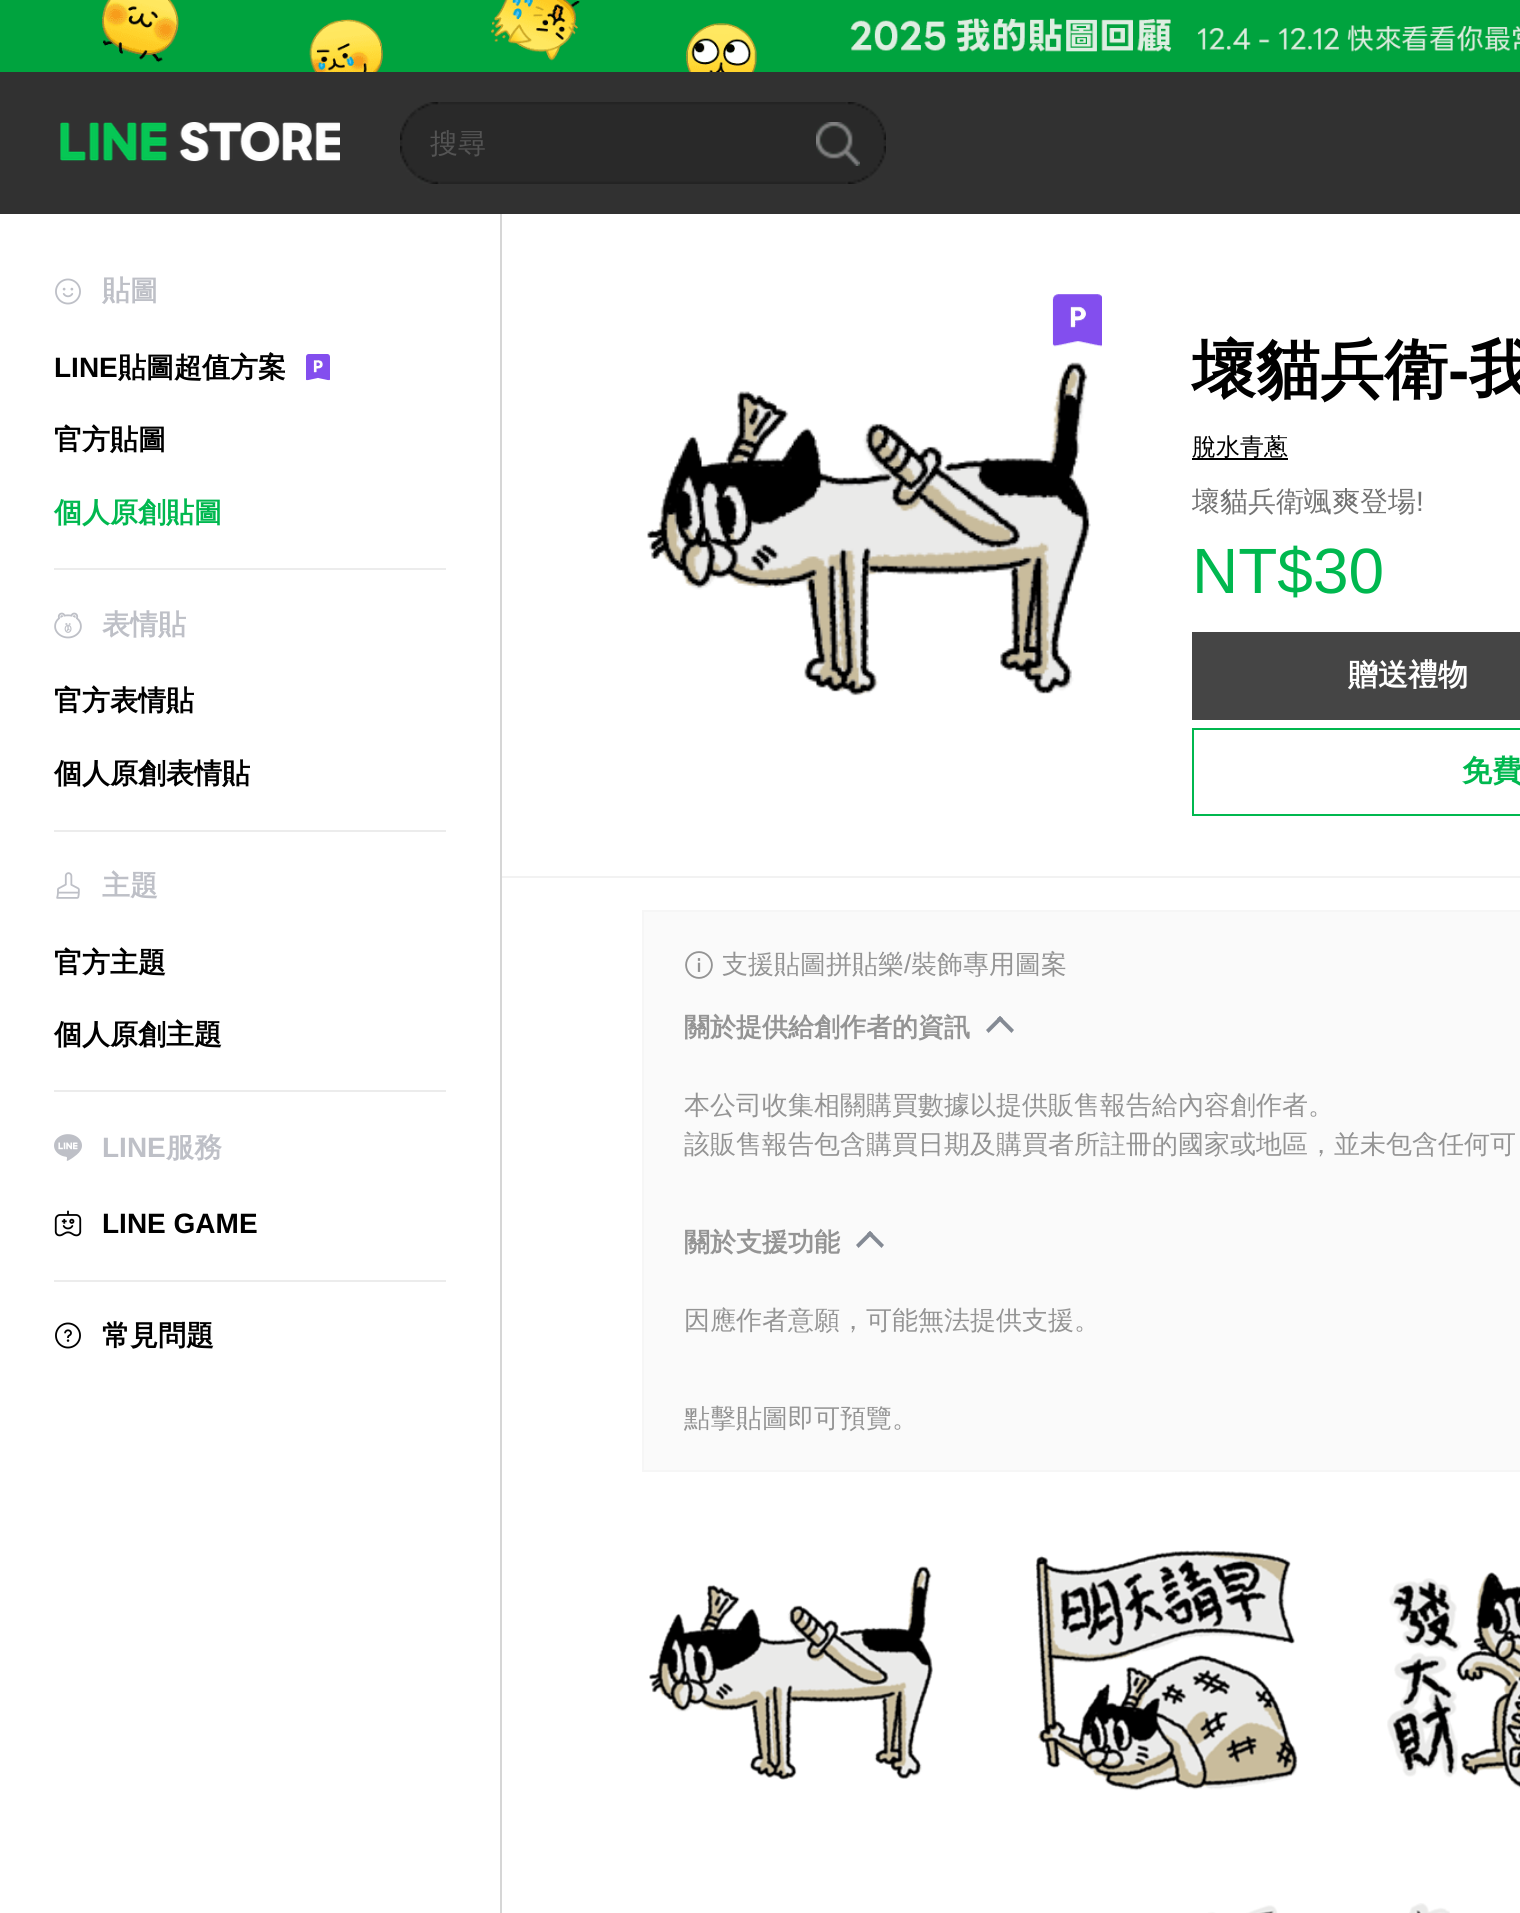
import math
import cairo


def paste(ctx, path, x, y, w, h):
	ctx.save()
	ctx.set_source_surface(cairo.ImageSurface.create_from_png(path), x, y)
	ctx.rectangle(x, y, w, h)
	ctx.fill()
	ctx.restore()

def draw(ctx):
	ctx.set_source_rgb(1, 1, 1)
	ctx.paint()
	paste(ctx, 'media/1.png', 0, 0, 1520, 72)
	ctx.set_source_rgb(0.192, 0.192, 0.192)
	ctx.rectangle(0, 72, 1520, 142)
	ctx.fill()
	paste(ctx, 'media/2.png', 60, 122, 280, 40)
	paste(ctx, 'media/3.png', 400, 102, 486, 82)
	ctx.select_font_face('WenQuanYi Zen Hei Medium')
	ctx.set_font_size(28)
	ctx.set_source_rgb(0.329, 0.329, 0.329)
	ctx.move_to(430, 153)
	ctx.show_text('搜尋')
	paste(ctx, 'media/4.png', 816, 122, 44, 44)
	paste(ctx, 'media/5.png', 55, 278, 26, 27)
	ctx.select_font_face('WenQuanYi Zen Hei', cairo.FONT_SLANT_NORMAL, cairo.FONT_WEIGHT_BOLD)
	ctx.set_source_rgb(0.745, 0.753, 0.78)
	ctx.move_to(102, 300)
	ctx.show_text('貼圖')
	ctx.select_font_face('Liberation Sans', cairo.FONT_SLANT_NORMAL, cairo.FONT_WEIGHT_BOLD)
	ctx.set_source_rgb(0, 0, 0)
	ctx.move_to(54, 377)
	ctx.show_text('LINE')
	ctx.select_font_face('WenQuanYi Zen Hei', cairo.FONT_SLANT_NORMAL, cairo.FONT_WEIGHT_BOLD)
	ctx.move_to(118, 377)
	ctx.show_text('貼圖超值方案')
	paste(ctx, 'media/6.png', 306, 354, 24, 27)
	ctx.move_to(54, 449)
	ctx.show_text('官方貼圖')
	ctx.set_source_rgb(0, 0.722, 0.31)
	ctx.move_to(54, 522)
	ctx.show_text('個人原創貼圖')
	ctx.set_source_rgb(0.922, 0.922, 0.922)
	ctx.rectangle(54, 568, 392, 2)
	ctx.fill()
	paste(ctx, 'media/7.png', 54, 612, 28, 27)
	ctx.set_source_rgb(0.745, 0.753, 0.78)
	ctx.move_to(102, 634)
	ctx.show_text('表情貼')
	ctx.set_source_rgb(0, 0, 0)
	ctx.move_to(54, 710)
	ctx.show_text('官方表情貼')
	ctx.move_to(54, 783)
	ctx.show_text('個人原創表情貼')
	ctx.set_source_rgb(0.922, 0.922, 0.922)
	ctx.rectangle(54, 830, 392, 2)
	ctx.fill()
	paste(ctx, 'media/8.png', 56, 872, 24, 27)
	ctx.set_source_rgb(0.745, 0.753, 0.78)
	ctx.move_to(102, 895)
	ctx.show_text('主題')
	ctx.set_source_rgb(0, 0, 0)
	ctx.move_to(54, 972)
	ctx.show_text('官方主題')
	ctx.move_to(54, 1044)
	ctx.show_text('個人原創主題')
	ctx.set_source_rgb(0.922, 0.922, 0.922)
	ctx.rectangle(54, 1090, 392, 2)
	ctx.fill()
	paste(ctx, 'media/9.png', 54, 1134, 28, 27)
	ctx.select_font_face('Liberation Sans', cairo.FONT_SLANT_NORMAL, cairo.FONT_WEIGHT_BOLD)
	ctx.set_source_rgb(0.745, 0.753, 0.78)
	ctx.move_to(102, 1157)
	ctx.show_text('LINE')
	ctx.select_font_face('WenQuanYi Zen Hei', cairo.FONT_SLANT_NORMAL, cairo.FONT_WEIGHT_BOLD)
	ctx.move_to(166, 1157)
	ctx.show_text('服務')
	paste(ctx, 'media/10.png', 54, 1210, 28, 27)
	ctx.select_font_face('Liberation Sans', cairo.FONT_SLANT_NORMAL, cairo.FONT_WEIGHT_BOLD)
	ctx.set_source_rgb(0, 0, 0)
	ctx.move_to(102, 1233)
	ctx.show_text('LINE GAME')
	ctx.set_source_rgb(0.922, 0.922, 0.922)
	ctx.rectangle(54, 1280, 392, 2)
	ctx.fill()
	paste(ctx, 'media/11.png', 55, 1322, 26, 27)
	ctx.select_font_face('WenQuanYi Zen Hei', cairo.FONT_SLANT_NORMAL, cairo.FONT_WEIGHT_BOLD)
	ctx.set_source_rgb(0, 0, 0)
	ctx.move_to(102, 1345)
	ctx.show_text('常見問題')
	ctx.set_source_rgb(0.839, 0.839, 0.839)
	ctx.rectangle(500, 214, 2, 1699)
	ctx.fill()
	paste(ctx, 'media/12.png', 1052, 294, 50, 53)
	paste(ctx, 'media/13.png', 647, 362, 444, 334)
	ctx.set_font_size(64)
	ctx.set_source_rgb(0, 0, 0)
	ctx.move_to(1192, 392)
	ctx.show_text('壞貓兵衛')
	ctx.select_font_face('Liberation Sans', cairo.FONT_SLANT_NORMAL, cairo.FONT_WEIGHT_BOLD)
	ctx.move_to(1448, 392)
	ctx.show_text('-')
	ctx.select_font_face('WenQuanYi Zen Hei', cairo.FONT_SLANT_NORMAL, cairo.FONT_WEIGHT_BOLD)
	ctx.move_to(1469, 392)
	ctx.show_text('我')
	ctx.rectangle(1192, 458, 96, 2)
	ctx.fill()
	ctx.select_font_face('WenQuanYi Zen Hei Medium')
	ctx.set_font_size(24)
	ctx.move_to(1192, 455)
	ctx.show_text('脫水青蔥')
	ctx.set_font_size(28)
	ctx.set_source_rgb(0.451, 0.451, 0.451)
	ctx.move_to(1192, 511)
	ctx.show_text('壞貓兵衛颯爽登場')
	ctx.select_font_face('Liberation Sans')
	ctx.move_to(1416, 511)
	ctx.show_text('!')
	ctx.set_font_size(64)
	ctx.set_source_rgb(0, 0.722, 0.31)
	ctx.move_to(1192, 593)
	ctx.show_text('NT$30')
	ctx.set_source_rgb(0.271, 0.271, 0.271)
	ctx.rectangle(1192, 632, 328, 88)
	ctx.fill()
	ctx.select_font_face('WenQuanYi Zen Hei', cairo.FONT_SLANT_NORMAL, cairo.FONT_WEIGHT_BOLD)
	ctx.set_font_size(30)
	ctx.set_source_rgb(1, 1, 1)
	ctx.move_to(1348, 685)
	ctx.show_text('贈送禮物')
	ctx.rectangle(1193, 729, 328, 86)
	ctx.set_source_rgb(0, 0.722, 0.31)
	ctx.stroke()
	ctx.move_to(1462, 781)
	ctx.show_text('免費')
	ctx.set_source_rgb(0.949, 0.949, 0.949)
	ctx.rectangle(502, 876, 1018, 2)
	ctx.fill()
	ctx.set_source_rgb(0.98, 0.98, 0.98)
	ctx.rectangle(643, 911, 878, 560)
	ctx.fill_preserve()
	ctx.set_source_rgb(0.961, 0.961, 0.961)
	ctx.stroke()
	paste(ctx, 'media/14.png', 685, 951, 28, 28)
	ctx.select_font_face('WenQuanYi Zen Hei Medium')
	ctx.set_font_size(26)
	ctx.set_source_rgb(0.58, 0.58, 0.58)
	ctx.move_to(722, 973)
	ctx.show_text('支援貼圖拼貼樂')
	ctx.select_font_face('Liberation Sans')
	ctx.move_to(904, 973)
	ctx.show_text('/')
	ctx.select_font_face('WenQuanYi Zen Hei Medium')
	ctx.move_to(911, 973)
	ctx.show_text('裝飾專用圖案')
	ctx.select_font_face('WenQuanYi Zen Hei', cairo.FONT_SLANT_NORMAL, cairo.FONT_WEIGHT_BOLD)
	ctx.move_to(684, 1036)
	ctx.show_text('關於提供給創作者的資訊')
	ctx.set_source_rgb(0.518, 0.541, 0.58)
	ctx.new_path()
	ctx.move_to(986, 1030)
	ctx.line_to(1000, 1016)
	ctx.line_to(1003, 1018.5)
	ctx.line_to(988.5, 1033)
	ctx.close_path()
	ctx.fill()
	ctx.new_path()
	ctx.move_to(997, 1018.5)
	ctx.line_to(1000, 1016)
	ctx.line_to(1014, 1030)
	ctx.line_to(1011.5, 1033)
	ctx.close_path()
	ctx.fill()
	ctx.select_font_face('WenQuanYi Zen Hei Medium')
	ctx.set_source_rgb(0.58, 0.58, 0.58)
	ctx.move_to(684, 1114)
	ctx.show_text('本公司收集相關購買數據以提供販售報告給內容創作者。')
	ctx.move_to(684, 1153)
	ctx.show_text('該販售報告包含購買日期及購買者所註冊的國家或地區，並未包含任何可')
	ctx.select_font_face('WenQuanYi Zen Hei', cairo.FONT_SLANT_NORMAL, cairo.FONT_WEIGHT_BOLD)
	ctx.move_to(684, 1251)
	ctx.show_text('關於支援功能')
	ctx.set_source_rgb(0.518, 0.541, 0.58)
	ctx.new_path()
	ctx.move_to(856, 1245)
	ctx.line_to(870, 1231)
	ctx.line_to(873, 1233.5)
	ctx.line_to(858.5, 1248)
	ctx.close_path()
	ctx.fill()
	ctx.new_path()
	ctx.move_to(867, 1233.5)
	ctx.line_to(870, 1231)
	ctx.line_to(884, 1245)
	ctx.line_to(881.5, 1248)
	ctx.close_path()
	ctx.fill()
	ctx.select_font_face('WenQuanYi Zen Hei Medium')
	ctx.set_source_rgb(0.58, 0.58, 0.58)
	ctx.move_to(684, 1329)
	ctx.show_text('因應作者意願，可能無法提供支援。')
	ctx.move_to(684, 1427)
	ctx.show_text('點擊貼圖即可預覽。')
	paste(ctx, 'media/15.png', 649, 1566, 284, 214)
	paste(ctx, 'media/16.png', 1035, 1550, 263, 241)
	paste(ctx, 'media/17.png', 1387, 1572, 133, 217)
	paste(ctx, 'media/18.png', 1208, 1905, 70, 8)
	paste(ctx, 'media/19.png', 1409, 1903, 41, 10)


surface = cairo.ImageSurface(cairo.FORMAT_RGB24, 1520, 1913)
ctx = cairo.Context(surface)
options = cairo.FontOptions()
options.set_hint_metrics(cairo.HINT_METRICS_OFF)
options.set_hint_style(cairo.HINT_STYLE_NONE)
ctx.set_font_options(options)
ctx.set_miter_limit(4)
draw(ctx)
surface.write_to_png('image.png')
